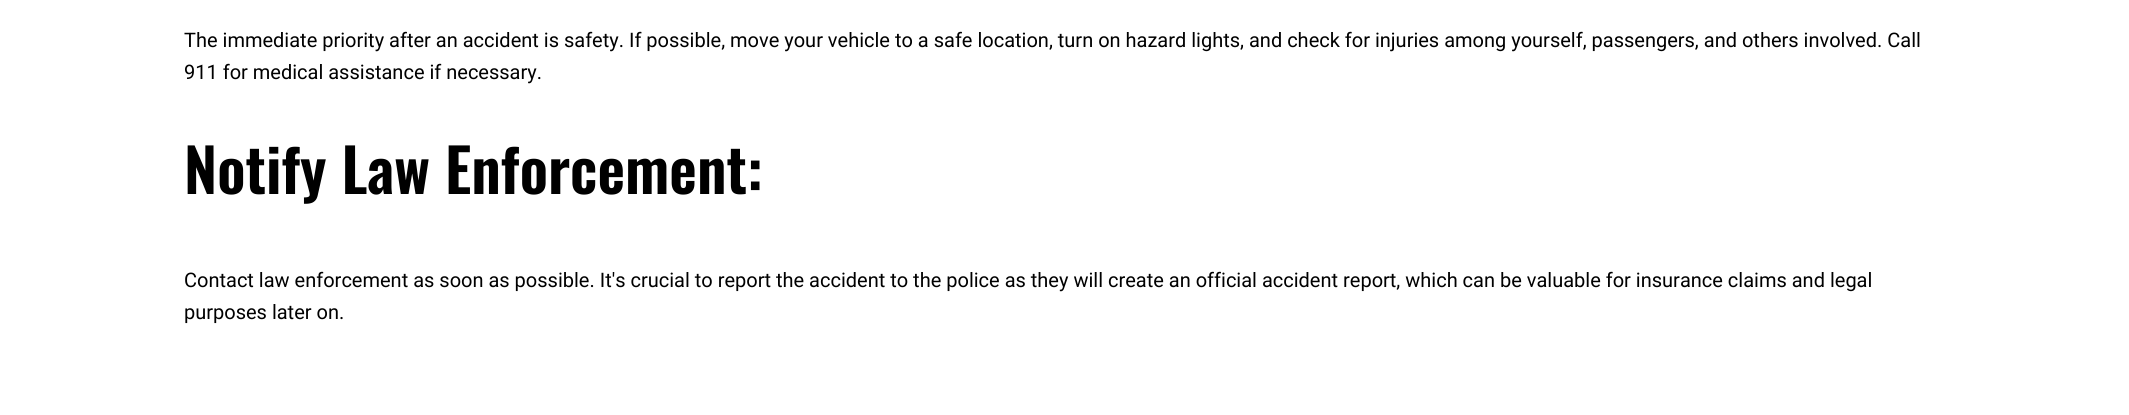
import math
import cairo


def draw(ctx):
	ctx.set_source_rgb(1, 1, 1)
	ctx.paint()
	ctx.select_font_face('Roboto')
	ctx.set_font_size(20)
	ctx.set_source_rgb(0, 0, 0)
	ctx.move_to(184, 47)
	ctx.show_text('The immediate priority after an accident is safety. If possible, move your vehicle to a safe location, turn on hazard lights, and check for injuries among yourself, passengers, and others involved. Call')
	ctx.move_to(184, 79)
	ctx.show_text('911 for medical assistance if necessary.')
	ctx.select_font_face('Oswald SemiBold')
	ctx.set_font_size(60)
	ctx.move_to(184, 194)
	ctx.show_text('Notify Law Enforcement:')
	ctx.select_font_face('Roboto')
	ctx.set_font_size(20)
	ctx.move_to(184, 287)
	ctx.show_text('Contact law enforcement as soon as possible. It\'s crucial to report the accident to the police as they will create an official accident report, which can be valuable for insurance claims and legal')
	ctx.move_to(184, 319)
	ctx.show_text('purposes later on.')


surface = cairo.ImageSurface(cairo.FORMAT_RGB24, 2129, 415)
ctx = cairo.Context(surface)
options = cairo.FontOptions()
options.set_hint_metrics(cairo.HINT_METRICS_OFF)
options.set_hint_style(cairo.HINT_STYLE_NONE)
ctx.set_font_options(options)
ctx.set_miter_limit(4)
draw(ctx)
surface.write_to_png('image.png')
